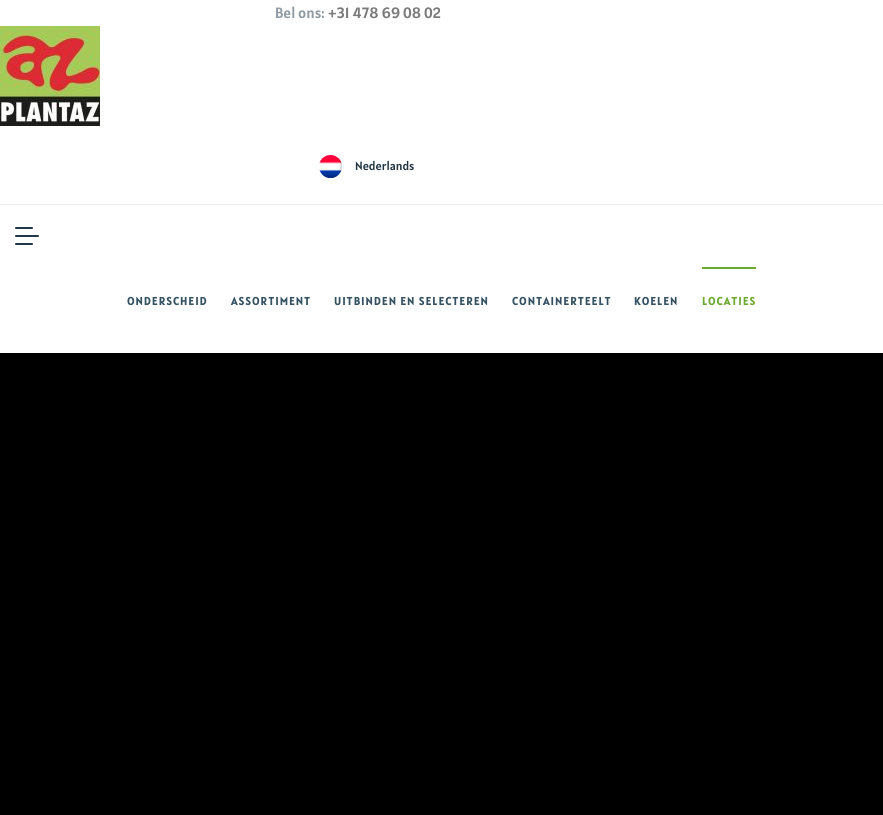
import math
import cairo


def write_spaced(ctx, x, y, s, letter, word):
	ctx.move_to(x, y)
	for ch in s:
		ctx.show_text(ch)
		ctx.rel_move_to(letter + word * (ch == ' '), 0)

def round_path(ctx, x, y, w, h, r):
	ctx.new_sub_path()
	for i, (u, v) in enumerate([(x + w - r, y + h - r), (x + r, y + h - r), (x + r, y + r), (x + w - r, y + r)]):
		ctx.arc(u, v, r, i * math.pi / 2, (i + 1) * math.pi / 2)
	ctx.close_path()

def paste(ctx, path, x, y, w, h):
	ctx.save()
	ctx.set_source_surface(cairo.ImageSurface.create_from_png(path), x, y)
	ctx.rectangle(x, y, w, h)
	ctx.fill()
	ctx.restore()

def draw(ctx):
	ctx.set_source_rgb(1, 1, 1)
	ctx.paint()
	ctx.set_source_rgb(0.922, 0.933, 0.937)
	ctx.rectangle(0, 204, 883, 1)
	ctx.fill()
	ctx.select_font_face('Alatsi')
	ctx.set_font_size(15)
	ctx.set_source_rgb(0.549, 0.6, 0.631)
	ctx.move_to(275, 18)
	ctx.show_text('Bel ons:')
	ctx.set_source_rgb(0.478, 0.478, 0.478)
	ctx.move_to(328, 18)
	ctx.show_text('+31 478 69 08 02')
	paste(ctx, 'media/1.png', 0, 26, 100, 100)
	paste(ctx, 'media/2.png', 319, 155, 23, 23)
	ctx.set_font_size(12)
	ctx.set_source_rgb(0.133, 0.212, 0.271)
	ctx.move_to(355, 170)
	ctx.show_text('Nederlands')
	round_path(ctx, 15, 235, 24, 2, 1)
	ctx.fill()
	round_path(ctx, 15, 227, 18, 2, 1)
	ctx.fill()
	round_path(ctx, 15, 243, 18, 2, 1)
	ctx.fill()
	ctx.select_font_face('Alatsi', cairo.FONT_SLANT_NORMAL, cairo.FONT_WEIGHT_BOLD)
	ctx.set_font_size(11.1)
	ctx.set_source_rgb(0.208, 0.322, 0.388)
	for x, y, s in [
		(127, 305, 'ONDERSCHEID'),
		(231, 305, 'ASSORTIMENT'),
		(334, 305, 'UITBINDEN EN SELECTEREN'),
		(512, 305, 'CONTAINERTEELT'),
		(634, 305, 'KOELEN'),
	]:
		write_spaced(ctx, x, y, s, 1.25, 0)
	ctx.set_source_rgb(0.427, 0.659, 0.188)
	ctx.rectangle(702, 267, 54, 2)
	ctx.fill()
	write_spaced(ctx, 702, 305, 'LOCATIES', 1.25, 0)
	ctx.set_source_rgb(0, 0, 0)
	ctx.rectangle(0, 353, 883, 462)
	ctx.fill()


surface = cairo.ImageSurface(cairo.FORMAT_RGB24, 883, 815)
ctx = cairo.Context(surface)
options = cairo.FontOptions()
options.set_hint_metrics(cairo.HINT_METRICS_OFF)
options.set_hint_style(cairo.HINT_STYLE_NONE)
ctx.set_font_options(options)
ctx.set_miter_limit(4)
draw(ctx)
surface.write_to_png('image.png')
